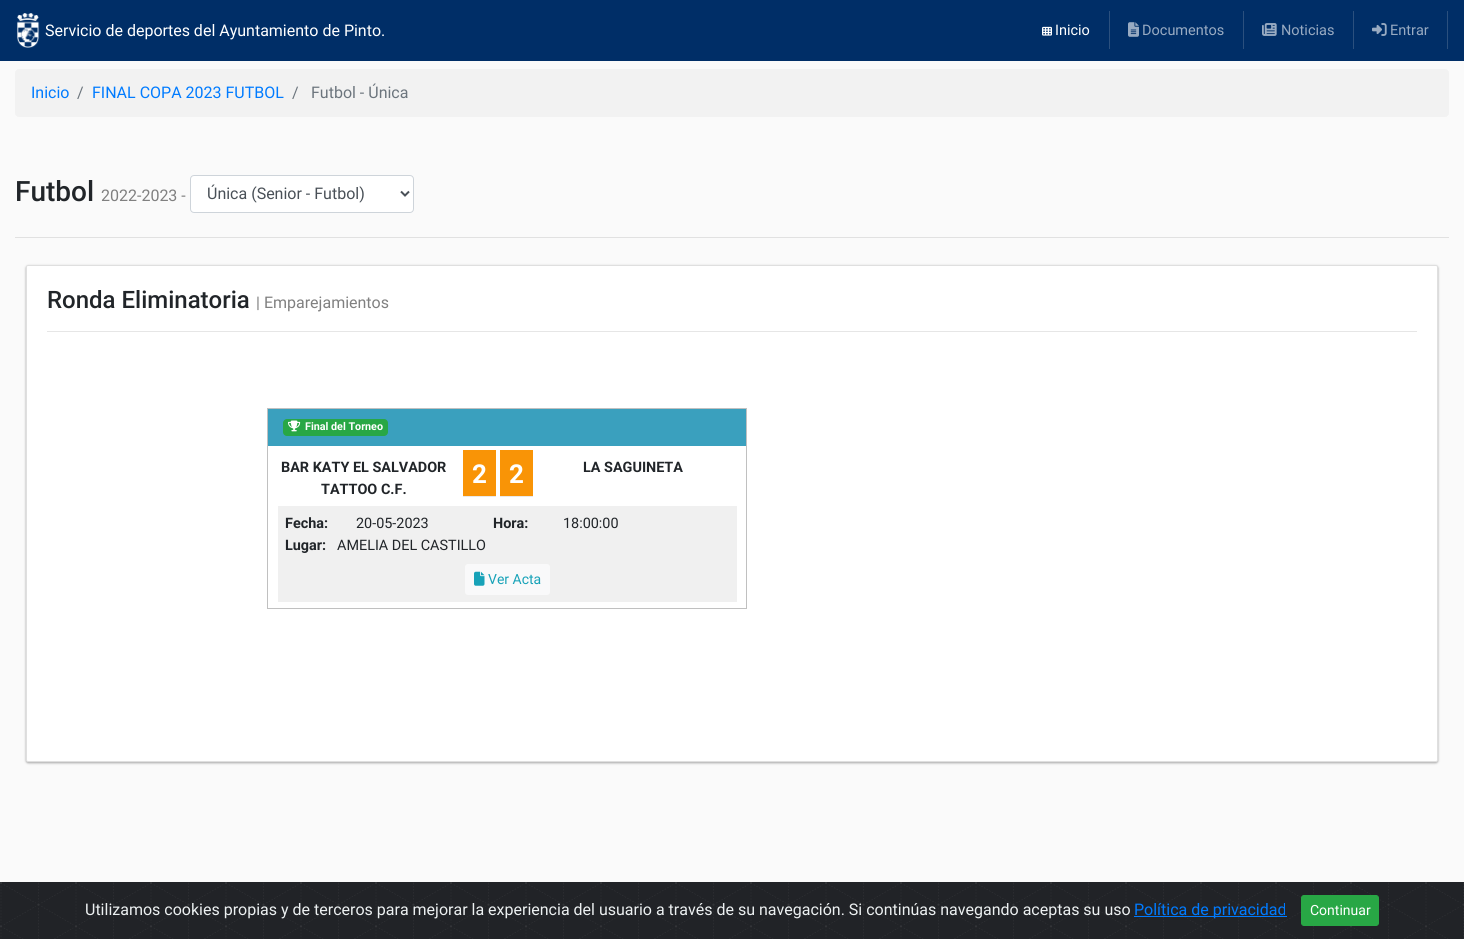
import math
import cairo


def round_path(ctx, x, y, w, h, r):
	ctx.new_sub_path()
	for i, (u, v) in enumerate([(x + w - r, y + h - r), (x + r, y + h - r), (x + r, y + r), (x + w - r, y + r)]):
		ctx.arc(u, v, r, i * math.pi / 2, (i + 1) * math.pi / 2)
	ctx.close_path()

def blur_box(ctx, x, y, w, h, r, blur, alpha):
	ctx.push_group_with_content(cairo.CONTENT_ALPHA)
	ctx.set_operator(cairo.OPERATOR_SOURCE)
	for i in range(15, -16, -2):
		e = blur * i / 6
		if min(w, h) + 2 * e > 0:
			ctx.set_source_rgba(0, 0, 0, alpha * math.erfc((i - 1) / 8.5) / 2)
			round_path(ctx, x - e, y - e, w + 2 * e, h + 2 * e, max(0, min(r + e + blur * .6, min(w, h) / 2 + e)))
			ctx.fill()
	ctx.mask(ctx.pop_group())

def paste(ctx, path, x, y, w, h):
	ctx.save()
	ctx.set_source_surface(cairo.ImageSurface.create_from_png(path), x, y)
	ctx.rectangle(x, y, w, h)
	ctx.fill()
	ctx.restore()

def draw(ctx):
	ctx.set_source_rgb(0.98, 0.98, 0.98)
	ctx.paint()
	ctx.set_source_rgb(0, 0.18, 0.404)
	ctx.rectangle(0, 0, 1464, 61)
	ctx.fill()
	paste(ctx, 'media/1.png', 17, 13, 23, 35)
	ctx.select_font_face('Roboto')
	ctx.set_font_size(16)
	ctx.set_source_rgb(1, 1, 1)
	ctx.move_to(45, 36)
	ctx.show_text('Servicio de deportes del Ayuntamiento de Pinto.')
	ctx.set_source_rgb(0.169, 0.314, 0.494)
	ctx.rectangle(1109, 11, 1, 38)
	ctx.fill()
	paste(ctx, 'media/2.png', 1042, 26, 10, 10)
	ctx.set_font_size(14.5)
	ctx.set_source_rgb(1, 1, 1)
	ctx.move_to(1055, 35)
	ctx.show_text('Inicio')
	ctx.set_source_rgb(0.169, 0.314, 0.494)
	ctx.rectangle(1243, 11, 1, 38)
	ctx.fill()
	paste(ctx, 'media/3.png', 1128, 22, 11, 15)
	ctx.set_source_rgb(0.6, 0.671, 0.761)
	ctx.move_to(1142, 35)
	ctx.show_text('Documentos')
	ctx.set_source_rgb(0.169, 0.314, 0.494)
	ctx.rectangle(1353, 11, 1, 38)
	ctx.fill()
	paste(ctx, 'media/4.png', 1262, 23, 15, 13)
	ctx.set_source_rgb(0.6, 0.671, 0.761)
	ctx.move_to(1281, 35)
	ctx.show_text('Noticias')
	ctx.set_source_rgb(0.169, 0.314, 0.494)
	ctx.rectangle(1447, 11, 1, 38)
	ctx.fill()
	paste(ctx, 'media/5.png', 1372, 23, 15, 13)
	ctx.set_source_rgb(0.6, 0.671, 0.761)
	ctx.move_to(1390, 35)
	ctx.show_text('Entrar')
	ctx.set_source_rgb(0.949, 0.949, 0.949)
	round_path(ctx, 15, 69, 1434, 48, 4)
	ctx.fill()
	ctx.set_font_size(16)
	ctx.set_source_rgb(0, 0.482, 1)
	ctx.move_to(31, 98)
	ctx.show_text('Inicio')
	ctx.set_source_rgb(0.424, 0.459, 0.49)
	ctx.move_to(77, 98)
	ctx.show_text('/')
	ctx.set_source_rgb(0, 0.482, 1)
	ctx.move_to(92, 98)
	ctx.show_text('FINAL COPA 2023 FUTBOL')
	ctx.set_source_rgb(0.424, 0.459, 0.49)
	ctx.move_to(292, 98)
	ctx.show_text('/')
	ctx.move_to(311, 98)
	ctx.show_text('Futbol - Única')
	ctx.select_font_face('Roboto Medium')
	ctx.set_font_size(28)
	ctx.set_source_rgb(0.129, 0.145, 0.161)
	ctx.move_to(15, 201)
	ctx.show_text('Futbol')
	ctx.select_font_face('Roboto')
	ctx.set_font_size(16)
	ctx.set_source_rgb(0.502, 0.502, 0.502)
	ctx.move_to(101, 201)
	ctx.show_text('2022-2023 -')
	ctx.set_source_rgb(1, 1, 1)
	round_path(ctx, 190.5, 175.5, 223, 37, 3.5)
	ctx.fill_preserve()
	ctx.set_source_rgb(0.808, 0.831, 0.855)
	ctx.set_line_width(1)
	ctx.stroke()
	ctx.new_path()
	ctx.move_to(401, 191.5)
	ctx.line_to(405, 195.5)
	ctx.line_to(409, 191.5)
	ctx.set_source_rgb(0.286, 0.314, 0.341)
	ctx.set_line_width(2)
	ctx.stroke()
	ctx.move_to(207, 199)
	ctx.show_text('Única (Senior - Futbol)')
	ctx.set_source_rgb(0.882, 0.882, 0.882)
	ctx.rectangle(15, 237, 1434, 1)
	ctx.fill()
	ctx.set_source_rgb(0, 0, 0)
	blur_box(ctx, 26, 266, 1412, 497, 2, 1, 0.24)
	blur_box(ctx, 26, 266, 1412, 497, 2, 1.5, 0.12)
	ctx.set_source_rgb(1, 1, 1)
	round_path(ctx, 26.5, 265.5, 1411, 496, 1.5)
	ctx.fill_preserve()
	ctx.set_source_rgb(0.875, 0.875, 0.875)
	ctx.set_line_width(1)
	ctx.stroke()
	ctx.select_font_face('Roboto Medium')
	ctx.set_font_size(24)
	ctx.set_source_rgb(0.129, 0.145, 0.161)
	ctx.move_to(47, 308)
	ctx.show_text('Ronda Eliminatoria')
	ctx.select_font_face('Roboto')
	ctx.set_font_size(16)
	ctx.set_source_rgb(0.502, 0.502, 0.502)
	ctx.move_to(256, 308)
	ctx.show_text('| Emparejamientos')
	ctx.set_source_rgb(0.902, 0.902, 0.902)
	ctx.rectangle(47, 331, 1370, 1)
	ctx.fill()
	ctx.rectangle(267.5, 408.5, 479, 200)
	ctx.set_source_rgb(0.753, 0.753, 0.753)
	ctx.stroke()
	ctx.set_source_rgb(0.227, 0.627, 0.745)
	ctx.rectangle(268, 409, 478, 37)
	ctx.fill()
	ctx.set_source_rgb(0.157, 0.655, 0.271)
	round_path(ctx, 283, 419, 105, 17, 4)
	ctx.fill()
	paste(ctx, 'media/6.png', 288, 420, 13, 12)
	ctx.select_font_face('Roboto', cairo.FONT_SLANT_NORMAL, cairo.FONT_WEIGHT_BOLD)
	ctx.set_font_size(10.75)
	ctx.set_source_rgb(1, 1, 1)
	ctx.move_to(305, 430)
	ctx.show_text('Final del Torneo')
	ctx.set_font_size(14.4)
	ctx.set_source_rgb(0.129, 0.145, 0.161)
	ctx.move_to(281, 472)
	ctx.show_text('BAR KATY EL SALVADOR')
	ctx.move_to(321, 494)
	ctx.show_text('TATTOO C.F.')
	ctx.set_source_rgb(0.973, 0.58, 0.024)
	ctx.rectangle(463, 450, 33, 46)
	ctx.fill()
	ctx.set_source_rgb(0.914, 0.914, 0.914)
	ctx.rectangle(463, 496, 33, 1)
	ctx.fill()
	ctx.set_font_size(26)
	ctx.set_source_rgb(1, 1, 1)
	ctx.move_to(472, 483)
	ctx.show_text('2')
	ctx.set_source_rgb(0.973, 0.58, 0.024)
	ctx.rectangle(500, 450, 33, 46)
	ctx.fill()
	ctx.set_source_rgb(0.914, 0.914, 0.914)
	ctx.rectangle(500, 496, 33, 1)
	ctx.fill()
	ctx.set_source_rgb(1, 1, 1)
	ctx.move_to(509, 483)
	ctx.show_text('2')
	ctx.set_font_size(14.4)
	ctx.set_source_rgb(0.129, 0.145, 0.161)
	ctx.move_to(583, 472)
	ctx.show_text('LA SAGUINETA')
	ctx.set_source_rgb(0.941, 0.941, 0.941)
	ctx.rectangle(278, 506, 459, 96)
	ctx.fill()
	ctx.set_source_rgb(0.129, 0.145, 0.161)
	ctx.move_to(285, 528)
	ctx.show_text('Fecha:')
	ctx.select_font_face('Roboto')
	ctx.move_to(356, 528)
	ctx.show_text('20-05-2023')
	ctx.select_font_face('Roboto', cairo.FONT_SLANT_NORMAL, cairo.FONT_WEIGHT_BOLD)
	ctx.move_to(493, 528)
	ctx.show_text('Hora:')
	ctx.select_font_face('Roboto')
	ctx.move_to(563, 528)
	ctx.show_text('18:00:00')
	ctx.select_font_face('Roboto', cairo.FONT_SLANT_NORMAL, cairo.FONT_WEIGHT_BOLD)
	ctx.move_to(285, 550)
	ctx.show_text('Lugar:')
	ctx.select_font_face('Roboto')
	ctx.move_to(337, 550)
	ctx.show_text('AMELIA DEL CASTILLO')
	ctx.set_source_rgb(0.973, 0.976, 0.98)
	round_path(ctx, 465, 564, 85, 31, 3)
	ctx.fill()
	paste(ctx, 'media/7.png', 474, 571, 11, 15)
	ctx.set_font_size(14)
	ctx.set_source_rgb(0.09, 0.635, 0.722)
	ctx.move_to(488, 584)
	ctx.show_text('Ver Acta')
	paste(ctx, 'media/8.png', 0, 882, 1464, 57)
	ctx.set_font_size(16)
	ctx.set_source_rgb(0.925, 0.941, 0.945)
	ctx.move_to(85, 915)
	ctx.show_text('Utilizamos cookies propias y de terceros para mejorar la experiencia del usuario a través de su navegación. Si continúas navegando aceptas su uso')
	ctx.set_source_rgb(0, 0.482, 1)
	ctx.rectangle(1134, 916, 153, 1)
	ctx.fill()
	ctx.move_to(1134, 915)
	ctx.show_text('Política de privacidad')
	ctx.set_source_rgb(0.157, 0.655, 0.271)
	round_path(ctx, 1301.5, 895.5, 77, 30, 2.5)
	ctx.fill_preserve()
	ctx.stroke()
	ctx.set_font_size(14)
	ctx.set_source_rgb(1, 1, 1)
	ctx.move_to(1310, 915)
	ctx.show_text('Continuar')


surface = cairo.ImageSurface(cairo.FORMAT_RGB24, 1464, 939)
ctx = cairo.Context(surface)
options = cairo.FontOptions()
options.set_hint_metrics(cairo.HINT_METRICS_OFF)
options.set_hint_style(cairo.HINT_STYLE_NONE)
ctx.set_font_options(options)
ctx.set_miter_limit(4)
draw(ctx)
surface.write_to_png('image.png')
